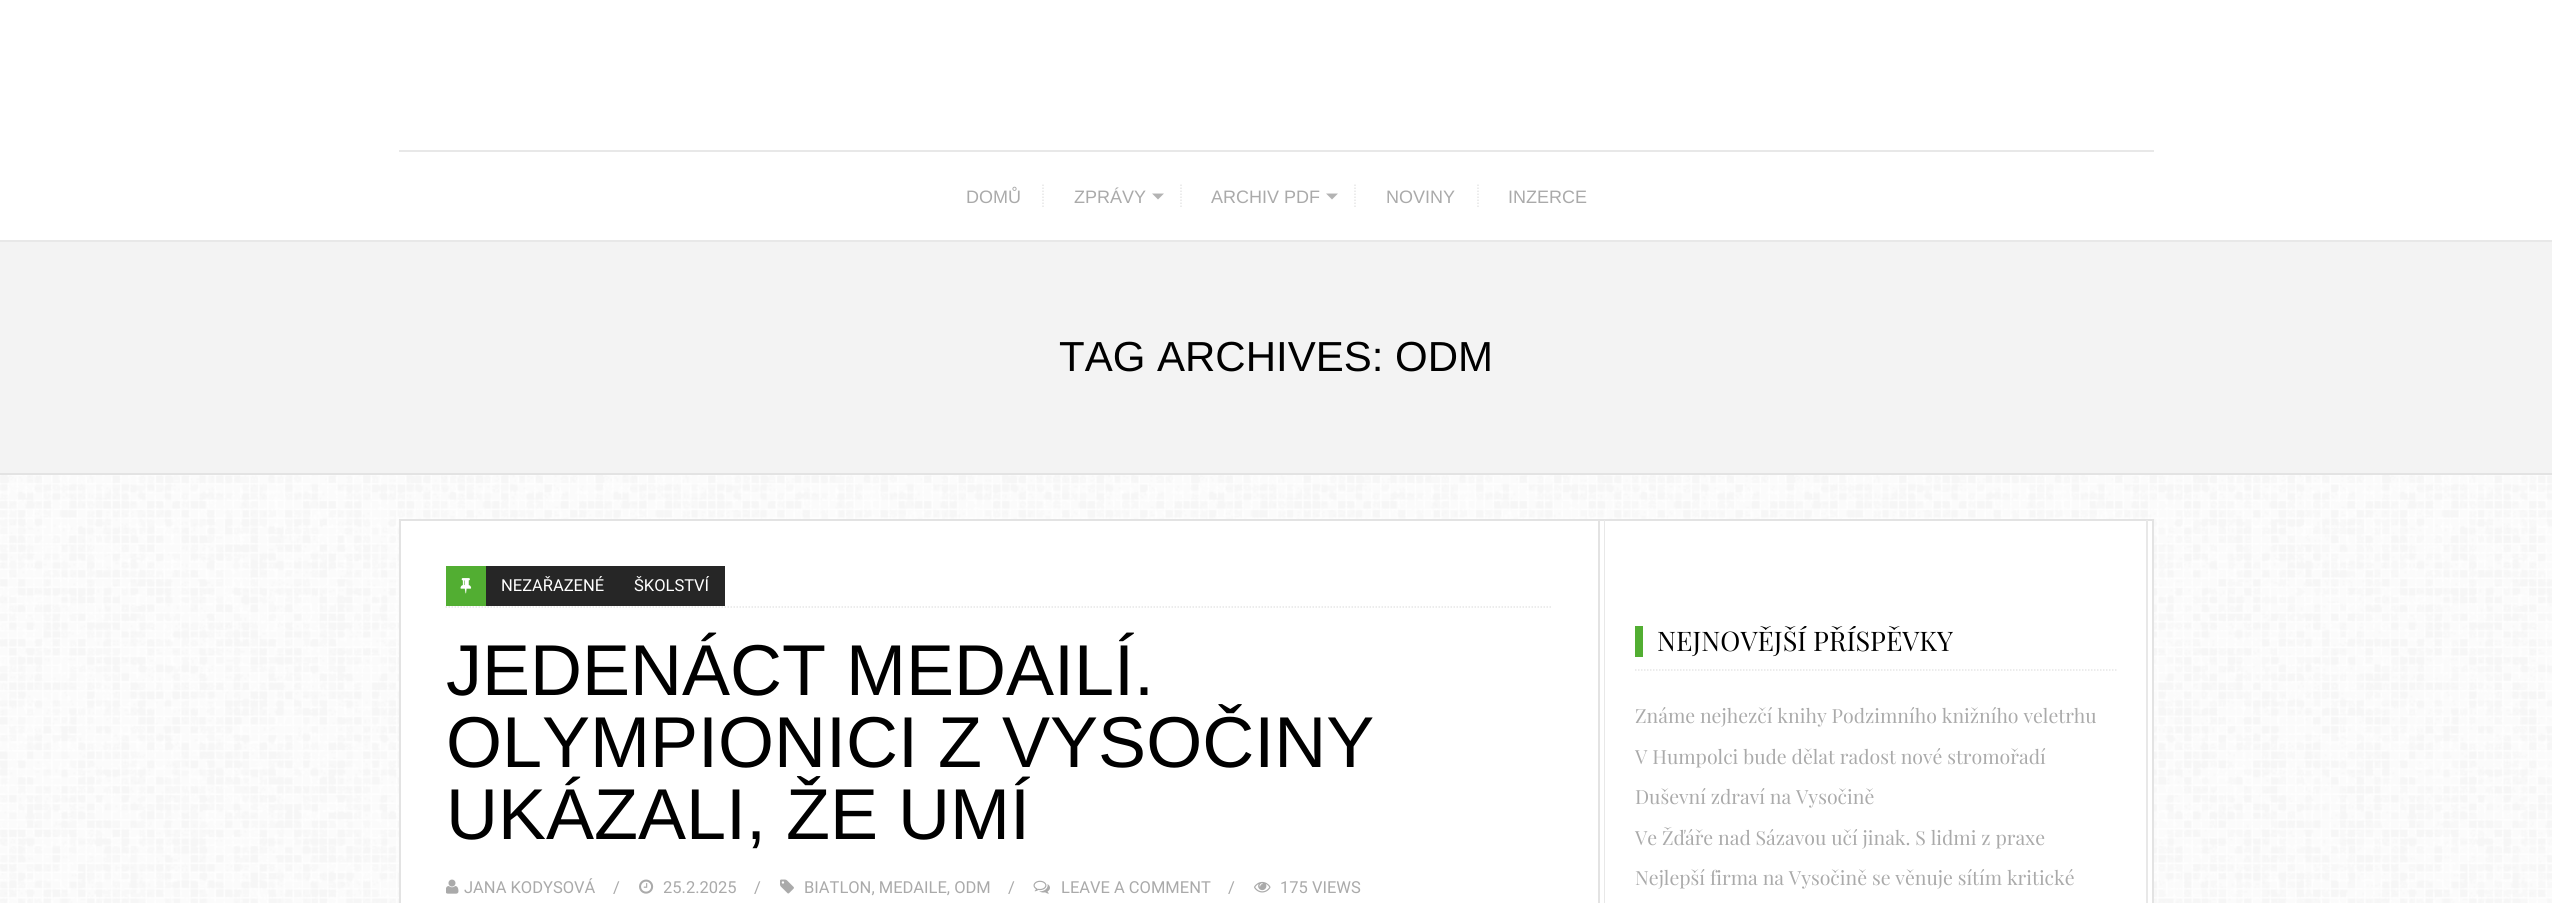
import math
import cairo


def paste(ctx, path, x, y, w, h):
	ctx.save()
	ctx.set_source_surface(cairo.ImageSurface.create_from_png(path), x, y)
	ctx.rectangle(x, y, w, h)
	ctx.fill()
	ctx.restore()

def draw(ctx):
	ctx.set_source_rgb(1, 1, 1)
	ctx.paint()
	paste(ctx, 'media/1.png', 0, 475, 2552, 428)
	ctx.set_source_rgb(0.91, 0.91, 0.91)
	ctx.rectangle(0, 240, 2552, 2)
	ctx.fill()
	ctx.rectangle(399, 150, 1755, 2)
	ctx.fill()
	ctx.select_font_face('Liberation Sans')
	ctx.set_font_size(18)
	ctx.set_source_rgb(0.667, 0.667, 0.667)
	ctx.move_to(966, 203)
	ctx.show_text('DOMŮ')
	ctx.new_path()
	ctx.move_to(1043, 184.5)
	ctx.line_to(1043, 207)
	ctx.set_source_rgb(0.902, 0.902, 0.902)
	ctx.set_line_width(1.5)
	ctx.set_dash([1.5, 1.5])
	ctx.stroke()
	ctx.set_source_rgb(0.667, 0.667, 0.667)
	ctx.move_to(1074, 203)
	ctx.show_text('ZPRÁVY')
	ctx.set_source_rgb(0.702, 0.702, 0.702)
	ctx.new_path()
	ctx.move_to(1152, 193.5)
	ctx.line_to(1164, 193.5)
	ctx.line_to(1158, 199.5)
	ctx.close_path()
	ctx.fill()
	ctx.new_path()
	ctx.move_to(1181, 184.5)
	ctx.line_to(1181, 207)
	ctx.set_source_rgb(0.902, 0.902, 0.902)
	ctx.stroke()
	ctx.set_source_rgb(0.667, 0.667, 0.667)
	ctx.move_to(1211, 203)
	ctx.show_text('ARCHIV PDF')
	ctx.set_source_rgb(0.702, 0.702, 0.702)
	ctx.new_path()
	ctx.move_to(1326, 193.5)
	ctx.line_to(1338, 193.5)
	ctx.line_to(1332, 199.5)
	ctx.close_path()
	ctx.fill()
	ctx.new_path()
	ctx.move_to(1355, 184.5)
	ctx.line_to(1355, 207)
	ctx.set_source_rgb(0.902, 0.902, 0.902)
	ctx.stroke()
	ctx.set_source_rgb(0.667, 0.667, 0.667)
	ctx.move_to(1386, 203)
	ctx.show_text('NOVINY')
	ctx.new_path()
	ctx.move_to(1478, 184.5)
	ctx.line_to(1478, 207)
	ctx.set_source_rgb(0.902, 0.902, 0.902)
	ctx.stroke()
	ctx.set_source_rgb(0.667, 0.667, 0.667)
	ctx.move_to(1508, 203)
	ctx.show_text('INZERCE')
	ctx.set_source_rgb(0.953, 0.953, 0.953)
	ctx.rectangle(0, 242, 2552, 231)
	ctx.fill()
	ctx.set_source_rgb(0.89, 0.89, 0.89)
	ctx.rectangle(0, 473, 2552, 2)
	ctx.fill()
	ctx.set_font_size(42)
	ctx.set_source_rgb(0, 0, 0)
	ctx.move_to(1059, 371)
	ctx.show_text('TAG ARCHIVES: ODM')
	ctx.set_source_rgb(1, 1, 1)
	ctx.rectangle(400, 520, 1753, 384)
	ctx.fill_preserve()
	ctx.set_source_rgb(0.89, 0.89, 0.89)
	ctx.set_line_width(2)
	ctx.set_dash([])
	ctx.stroke()
	ctx.rectangle(1598, 521, 2, 382)
	ctx.fill()
	ctx.new_path()
	ctx.move_to(445.5, 607)
	ctx.line_to(1552.5, 607)
	ctx.set_source_rgb(0.902, 0.902, 0.902)
	ctx.set_line_width(1.5)
	ctx.set_dash([1.5, 1.5])
	ctx.stroke()
	ctx.set_source_rgb(0.322, 0.682, 0.196)
	ctx.rectangle(446, 566, 40, 40)
	ctx.fill()
	paste(ctx, 'media/2.png', 460, 578, 12, 16)
	ctx.set_source_rgb(0.149, 0.149, 0.149)
	ctx.rectangle(486, 566, 239, 40)
	ctx.fill()
	ctx.select_font_face('Roboto')
	ctx.set_font_size(16.5)
	ctx.set_source_rgb(1, 1, 1)
	ctx.move_to(501, 591)
	ctx.show_text('NEZAŘAZENÉ')
	ctx.move_to(634, 591)
	ctx.show_text('ŠKOLSTVÍ')
	ctx.select_font_face('Liberation Sans')
	ctx.set_font_size(72)
	ctx.set_source_rgb(0, 0, 0)
	for x, y, s in [
		(446, 695, 'JEDENÁCT MEDAILÍ.'),
		(446, 767, 'OLYMPIONICI Z VYSOČINY'),
		(446, 839, 'UKÁZALI, ŽE UMÍ'),
	]:
		ctx.move_to(x, y)
		ctx.show_text(s)
	paste(ctx, 'media/3.png', 446, 879, 13, 15)
	ctx.select_font_face('Roboto')
	ctx.set_font_size(16.5)
	ctx.set_source_rgb(0.667, 0.667, 0.667)
	ctx.move_to(464, 893)
	ctx.show_text('JANA KODYSOVÁ')
	ctx.move_to(613, 893)
	ctx.show_text('/')
	paste(ctx, 'media/4.png', 639, 879, 15, 15)
	ctx.move_to(663, 893)
	ctx.show_text('25.2.2025')
	ctx.move_to(754, 893)
	ctx.show_text('/')
	paste(ctx, 'media/5.png', 780, 879, 14, 15)
	ctx.move_to(804, 893)
	ctx.show_text('BIATLON, MEDAILE, ODM')
	ctx.move_to(1008, 893)
	ctx.show_text('/')
	paste(ctx, 'media/6.png', 1033, 880, 17, 14)
	ctx.move_to(1061, 893)
	ctx.show_text('LEAVE A COMMENT')
	ctx.move_to(1228, 893)
	ctx.show_text('/')
	paste(ctx, 'media/7.png', 1254, 881, 17, 12)
	ctx.move_to(1280, 893)
	ctx.show_text('175 VIEWS')
	ctx.set_source_rgb(0.91, 0.91, 0.91)
	ctx.new_path()
	ctx.move_to(2148, 520)
	ctx.line_to(2148, 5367)
	ctx.line_to(2146, 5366)
	ctx.line_to(2146, 520)
	ctx.close_path()
	ctx.fill()
	ctx.new_path()
	ctx.move_to(1604, 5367)
	ctx.line_to(1604, 520)
	ctx.line_to(1605, 520)
	ctx.line_to(1605, 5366)
	ctx.close_path()
	ctx.fill()
	ctx.new_path()
	ctx.move_to(1635, 670)
	ctx.line_to(2116.5, 670)
	ctx.set_source_rgb(0.902, 0.902, 0.902)
	ctx.stroke()
	ctx.set_source_rgb(0.322, 0.682, 0.196)
	ctx.rectangle(1635, 626, 8, 31)
	ctx.fill()
	ctx.save()
	ctx.rectangle(1635, 626, 482, 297)
	ctx.clip()
	ctx.select_font_face('Playfair Display')
	ctx.set_font_size(27)
	ctx.set_source_rgb(0, 0, 0)
	ctx.move_to(1657, 651)
	ctx.show_text('NEJNOVĚJŠÍ PŘÍSPĚVKY')
	ctx.restore()
	ctx.select_font_face('Playfair Display')
	ctx.set_font_size(19.5)
	ctx.set_source_rgb(0.667, 0.667, 0.667)
	for x, y, s in [
		(1635, 723, 'Známe nejhezčí knihy Podzimního knižního veletrhu'),
		(1635, 764, 'V Humpolci bude dělat radost nové stromořadí'),
		(1635, 804, 'Duševní zdraví na Vysočině'),
		(1635, 845, 'Ve Žďáře nad Sázavou učí jinak. S lidmi z praxe'),
		(1635, 885, 'Nejlepší firma na Vysočině se věnuje sítím kritické'),
	]:
		ctx.move_to(x, y)
		ctx.show_text(s)


surface = cairo.ImageSurface(cairo.FORMAT_RGB24, 2552, 903)
ctx = cairo.Context(surface)
options = cairo.FontOptions()
options.set_hint_metrics(cairo.HINT_METRICS_OFF)
options.set_hint_style(cairo.HINT_STYLE_NONE)
ctx.set_font_options(options)
ctx.set_miter_limit(4)
draw(ctx)
surface.write_to_png('image.png')
